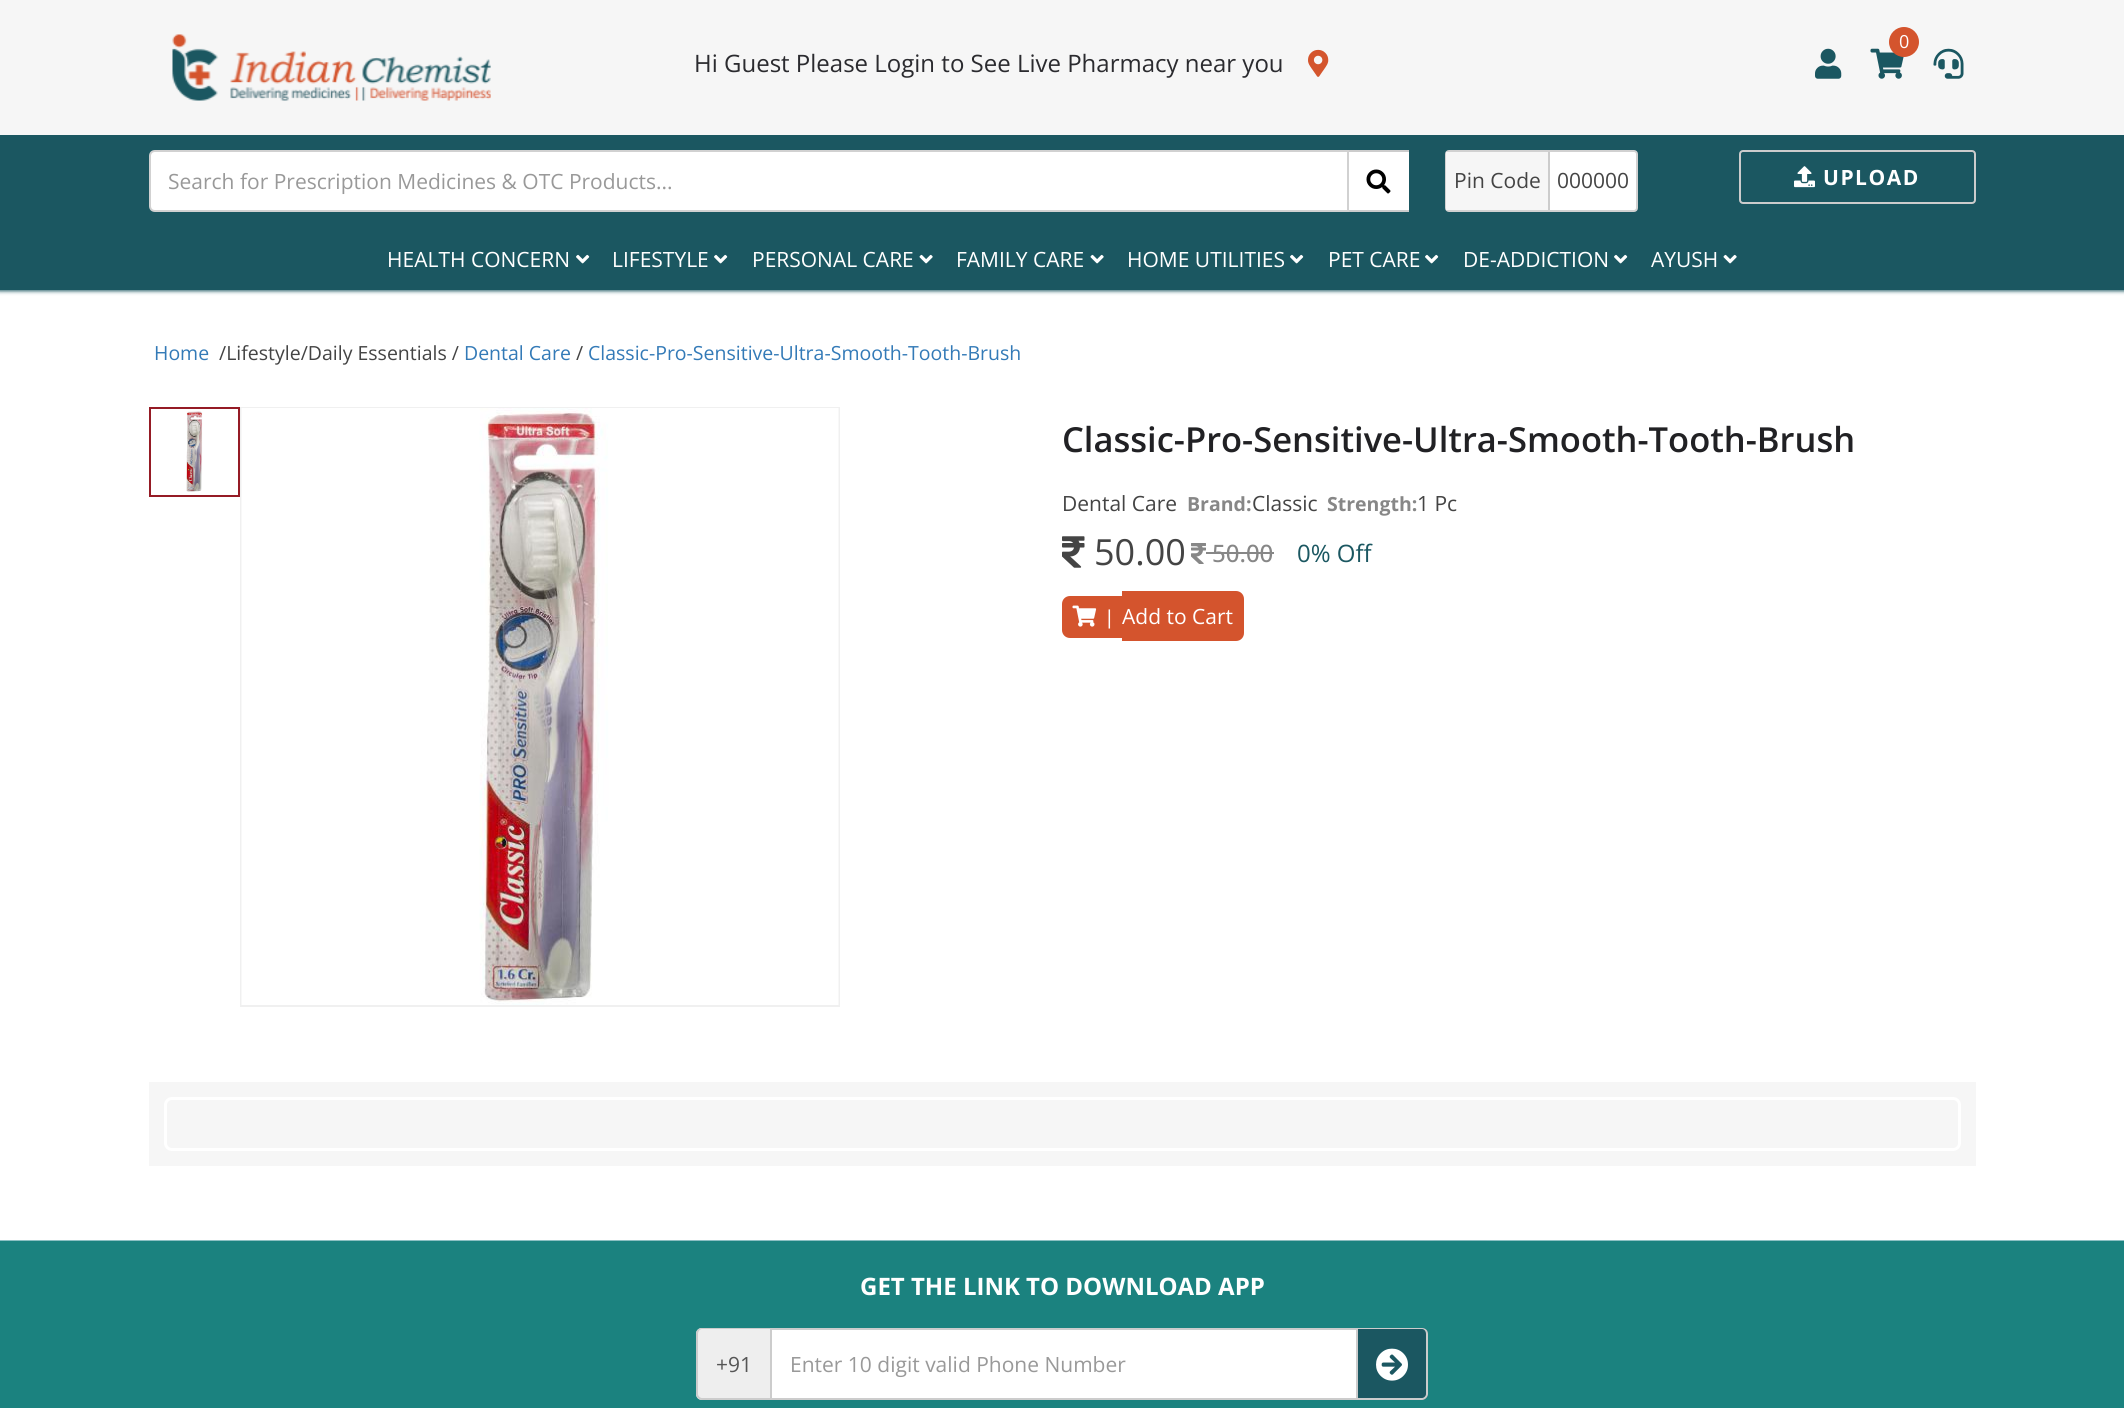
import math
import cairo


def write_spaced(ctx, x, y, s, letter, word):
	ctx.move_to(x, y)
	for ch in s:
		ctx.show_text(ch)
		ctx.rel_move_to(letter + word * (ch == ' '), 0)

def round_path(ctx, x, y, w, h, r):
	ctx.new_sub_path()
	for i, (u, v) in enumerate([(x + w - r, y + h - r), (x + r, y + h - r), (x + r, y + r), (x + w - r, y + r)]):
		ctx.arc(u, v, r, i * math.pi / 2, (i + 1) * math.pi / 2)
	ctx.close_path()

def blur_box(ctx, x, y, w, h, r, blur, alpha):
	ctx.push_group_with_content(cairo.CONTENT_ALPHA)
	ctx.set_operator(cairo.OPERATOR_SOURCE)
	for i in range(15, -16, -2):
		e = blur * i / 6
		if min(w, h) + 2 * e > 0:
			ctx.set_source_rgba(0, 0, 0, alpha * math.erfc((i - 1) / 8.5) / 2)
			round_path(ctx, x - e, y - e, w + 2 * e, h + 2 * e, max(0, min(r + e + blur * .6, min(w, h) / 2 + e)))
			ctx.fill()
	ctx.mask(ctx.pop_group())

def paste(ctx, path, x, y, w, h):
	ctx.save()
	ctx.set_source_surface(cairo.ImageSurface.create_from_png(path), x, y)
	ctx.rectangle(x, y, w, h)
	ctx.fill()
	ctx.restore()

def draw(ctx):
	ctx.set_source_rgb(1, 1, 1)
	ctx.paint()
	ctx.set_source_rgb(0.106, 0.341, 0.38)
	blur_box(ctx, -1, -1, 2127, 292, 0, 2, 1)
	ctx.set_source_rgb(0.961, 0.961, 0.961)
	ctx.rectangle(0, 0, 2124, 135)
	ctx.fill()
	paste(ctx, 'media/1.png', 172, 34, 319, 67)
	paste(ctx, 'media/2.png', 1870, 48, 34, 31)
	ctx.set_source_rgb(0.831, 0.329, 0.176)
	ctx.arc(1904, 42, 15, 0, 2 * math.pi)
	ctx.fill()
	ctx.select_font_face('Open Sans')
	ctx.set_font_size(18)
	ctx.set_source_rgb(1, 1, 1)
	ctx.move_to(1899, 48)
	ctx.show_text('0')
	paste(ctx, 'media/3.png', 1815, 48, 27, 31)
	paste(ctx, 'media/4.png', 1933, 48, 31, 31)
	ctx.set_font_size(24)
	ctx.set_source_rgb(0.169, 0.169, 0.184)
	ctx.move_to(694, 72)
	ctx.show_text('Hi Guest Please Login to See Live Pharmacy near you')
	paste(ctx, 'media/5.png', 1308, 49, 21, 28)
	ctx.set_source_rgb(0.106, 0.341, 0.38)
	ctx.rectangle(0, 135, 2124, 155)
	ctx.fill()
	ctx.set_source_rgb(1, 1, 1)
	ctx.new_path()
	ctx.move_to(155, 151)
	ctx.line_to(1348, 151)
	ctx.line_to(1348, 211)
	ctx.line_to(155, 211)
	ctx.curve_to(152, 211, 150, 209, 150, 206)
	ctx.line_to(150, 156)
	ctx.curve_to(150, 153, 152, 151, 155, 151)
	ctx.close_path()
	ctx.fill_preserve()
	ctx.set_source_rgb(0.82, 0.82, 0.82)
	ctx.stroke()
	ctx.set_font_size(21)
	ctx.set_source_rgb(0.6, 0.6, 0.6)
	ctx.move_to(168, 189)
	ctx.show_text('Search for Prescription Medicines & OTC Products...')
	ctx.set_source_rgb(1, 1, 1)
	ctx.rectangle(1349, 152, 60, 58)
	ctx.fill()
	ctx.set_source_rgb(0.8, 0.8, 0.8)
	ctx.rectangle(1349, 150, 60, 2)
	ctx.rectangle(1349, 210, 60, 2)
	ctx.fill()
	paste(ctx, 'media/6.png', 1366, 169, 25, 25)
	ctx.set_source_rgb(1, 1, 1)
	round_path(ctx, 1446, 151, 191, 60, 3)
	ctx.fill_preserve()
	ctx.set_source_rgb(0.82, 0.82, 0.82)
	ctx.stroke()
	ctx.set_source_rgb(0.961, 0.961, 0.961)
	ctx.rectangle(1446, 152, 102, 58)
	ctx.fill()
	ctx.set_source_rgb(0.8, 0.8, 0.8)
	ctx.rectangle(1548, 152, 2, 58)
	ctx.fill()
	ctx.set_source_rgb(0.267, 0.267, 0.267)
	ctx.move_to(1454, 188)
	ctx.show_text('Pin Code')
	ctx.move_to(1557, 188)
	ctx.show_text('000000')
	round_path(ctx, 1740, 151, 235, 52, 3)
	ctx.set_source_rgb(0.8, 0.8, 0.8)
	ctx.stroke()
	paste(ctx, 'media/7.png', 1794, 166, 21, 22)
	ctx.select_font_face('Open Sans', cairo.FONT_SLANT_NORMAL, cairo.FONT_WEIGHT_BOLD)
	ctx.set_source_rgb(1, 1, 1)
	write_spaced(ctx, 1823, 185, 'UPLOAD', 1.5, 0)
	ctx.select_font_face('Open Sans')
	ctx.move_to(387, 267)
	ctx.show_text('HEALTH CONCERN')
	paste(ctx, 'media/8.png', 576, 254, 14, 10)
	ctx.move_to(612, 267)
	ctx.show_text('LIFESTYLE')
	paste(ctx, 'media/8.png', 714, 254, 14, 10)
	ctx.move_to(752, 267)
	ctx.show_text('PERSONAL CARE')
	paste(ctx, 'media/9.png', 919, 254, 14, 10)
	ctx.move_to(956, 267)
	ctx.show_text('FAMILY CARE')
	paste(ctx, 'media/9.png', 1090, 254, 14, 10)
	ctx.move_to(1127, 267)
	ctx.show_text('HOME UTILITIES')
	paste(ctx, 'media/8.png', 1290, 254, 14, 10)
	ctx.move_to(1328, 267)
	ctx.show_text('PET CARE')
	paste(ctx, 'media/8.png', 1425, 254, 14, 10)
	ctx.move_to(1463, 267)
	ctx.show_text('DE-ADDICTION')
	paste(ctx, 'media/8.png', 1614, 254, 14, 10)
	ctx.move_to(1651, 267)
	ctx.show_text('AYUSH')
	paste(ctx, 'media/9.png', 1723, 254, 14, 10)
	ctx.set_font_size(19.5)
	ctx.set_source_rgb(0.2, 0.478, 0.718)
	ctx.move_to(154, 360)
	ctx.show_text('Home')
	ctx.set_source_rgb(0.267, 0.267, 0.267)
	ctx.move_to(219, 360)
	ctx.show_text('/Lifestyle/Daily Essentials /')
	ctx.set_source_rgb(0.2, 0.478, 0.718)
	ctx.move_to(464, 360)
	ctx.show_text('Dental Care')
	ctx.set_source_rgb(0.267, 0.267, 0.267)
	ctx.move_to(576, 360)
	ctx.show_text('/')
	ctx.set_source_rgb(0.2, 0.478, 0.718)
	ctx.move_to(588, 360)
	ctx.show_text('Classic-Pro-Sensitive-Ultra-Smooth-Tooth-Brush')
	ctx.rectangle(150, 408, 89, 88)
	ctx.set_source_rgb(0.584, 0.106, 0.145)
	ctx.stroke()
	paste(ctx, 'media/10.png', 186, 411, 17, 81)
	ctx.rectangle(241, 408, 598, 598)
	ctx.set_source_rgb(0.941, 0.941, 0.941)
	ctx.stroke()
	paste(ctx, 'media/11.png', 241, 408, 598, 597)
	ctx.select_font_face('Open Sans SemiBold')
	ctx.set_font_size(34.5)
	ctx.set_source_rgb(0.129, 0.129, 0.141)
	ctx.move_to(1062, 452)
	ctx.show_text('Classic-Pro-Sensitive-Ultra-Smooth-Tooth-Brush')
	ctx.select_font_face('Open Sans')
	ctx.set_font_size(21)
	ctx.set_source_rgb(0.267, 0.267, 0.267)
	ctx.move_to(1062, 511)
	ctx.show_text('Dental Care')
	ctx.select_font_face('Open Sans', cairo.FONT_SLANT_NORMAL, cairo.FONT_WEIGHT_BOLD)
	ctx.set_font_size(19.5)
	ctx.set_source_rgb(0.529, 0.529, 0.529)
	ctx.move_to(1187, 511)
	ctx.show_text('Brand:')
	ctx.select_font_face('Open Sans')
	ctx.set_font_size(21)
	ctx.set_source_rgb(0.267, 0.267, 0.267)
	ctx.move_to(1252, 511)
	ctx.show_text('Classic')
	ctx.select_font_face('Open Sans', cairo.FONT_SLANT_NORMAL, cairo.FONT_WEIGHT_BOLD)
	ctx.set_font_size(19.5)
	ctx.set_source_rgb(0.529, 0.529, 0.529)
	ctx.move_to(1327, 511)
	ctx.show_text('Strength:')
	ctx.select_font_face('Open Sans')
	ctx.set_font_size(21)
	ctx.set_source_rgb(0.267, 0.267, 0.267)
	ctx.move_to(1417, 511)
	ctx.show_text('1 Pc')
	paste(ctx, 'media/12.png', 1062, 536, 23, 32)
	ctx.set_font_size(36)
	ctx.move_to(1094, 565)
	ctx.show_text('50.00')
	paste(ctx, 'media/13.png', 1191, 543, 15, 21)
	ctx.select_font_face('Open Sans Medium')
	ctx.set_font_size(24)
	ctx.set_source_rgb(0.529, 0.529, 0.529)
	ctx.move_to(1212, 562)
	ctx.show_text('50.00')
	ctx.rectangle(1206, 552, 68, 2)
	ctx.fill()
	ctx.select_font_face('Open Sans')
	ctx.set_source_rgb(0.106, 0.341, 0.38)
	ctx.move_to(1297, 562)
	ctx.show_text('0% Off')
	ctx.set_source_rgb(0.831, 0.329, 0.176)
	ctx.new_path()
	ctx.move_to(1070, 596)
	ctx.line_to(1122, 596)
	ctx.line_to(1122, 638)
	ctx.line_to(1070, 638)
	ctx.curve_to(1065.5, 638, 1062, 634.5, 1062, 630)
	ctx.line_to(1062, 604)
	ctx.curve_to(1062, 599.5, 1065.5, 596, 1070, 596)
	ctx.close_path()
	ctx.fill()
	ctx.new_path()
	ctx.move_to(1122, 591)
	ctx.line_to(1236, 591)
	ctx.curve_to(1240.5, 591, 1244, 594.5, 1244, 599)
	ctx.line_to(1244, 633)
	ctx.curve_to(1244, 637.5, 1240.5, 641, 1236, 641)
	ctx.line_to(1122, 641)
	ctx.close_path()
	ctx.fill()
	paste(ctx, 'media/14.png', 1072, 605, 25, 22)
	ctx.select_font_face('Liberation Serif', cairo.FONT_SLANT_NORMAL, cairo.FONT_WEIGHT_BOLD)
	ctx.set_font_size(21)
	ctx.set_source_rgb(1, 1, 1)
	ctx.move_to(1107, 624)
	ctx.show_text('|')
	ctx.select_font_face('Open Sans')
	ctx.move_to(1122, 624)
	ctx.show_text('Add to Cart')
	ctx.set_source_rgb(0.961, 0.961, 0.961)
	ctx.rectangle(149, 1082, 1827, 84)
	ctx.fill()
	round_path(ctx, 165.5, 1098.5, 1794, 51, 6.5)
	ctx.set_source_rgb(1, 1, 1)
	ctx.set_line_width(3)
	ctx.stroke()
	paste(ctx, 'media/15.png', 0, 1240, 2124, 1)
	ctx.set_source_rgb(0.106, 0.51, 0.498)
	ctx.rectangle(0, 1241, 2124, 167)
	ctx.fill()
	ctx.select_font_face('Open Sans', cairo.FONT_SLANT_NORMAL, cairo.FONT_WEIGHT_BOLD)
	ctx.set_font_size(24)
	ctx.set_source_rgb(1, 1, 1)
	ctx.move_to(860, 1295)
	ctx.show_text('GET THE LINK TO DOWNLOAD APP')
	ctx.set_source_rgb(0.933, 0.933, 0.933)
	ctx.new_path()
	ctx.move_to(702, 1328)
	ctx.line_to(770, 1328)
	ctx.line_to(770, 1400)
	ctx.line_to(702, 1400)
	ctx.curve_to(698.5, 1400, 696, 1397.5, 696, 1394)
	ctx.line_to(696, 1334)
	ctx.curve_to(696, 1330.5, 698.5, 1328, 702, 1328)
	ctx.close_path()
	ctx.fill()
	ctx.set_source_rgb(0.8, 0.8, 0.8)
	ctx.set_fill_rule(cairo.FILL_RULE_EVEN_ODD)
	ctx.new_path()
	ctx.move_to(702, 1328)
	ctx.line_to(770, 1328)
	ctx.line_to(770, 1400)
	ctx.line_to(702, 1400)
	ctx.curve_to(699, 1400, 696, 1397, 696, 1394)
	ctx.line_to(696, 1334)
	ctx.curve_to(696, 1330, 699, 1328, 702, 1328)
	ctx.close_path()
	ctx.move_to(702, 1329)
	ctx.line_to(770, 1329)
	ctx.line_to(770, 1398)
	ctx.line_to(702, 1398)
	ctx.curve_to(700, 1398, 698, 1396, 698, 1394)
	ctx.line_to(698, 1334)
	ctx.curve_to(698, 1331, 700, 1329, 702, 1329)
	ctx.close_path()
	ctx.fill()
	ctx.select_font_face('Open Sans')
	ctx.set_font_size(21)
	ctx.set_source_rgb(0.333, 0.333, 0.333)
	ctx.move_to(716, 1372)
	ctx.show_text('+91')
	ctx.set_source_rgb(1, 1, 1)
	ctx.rectangle(771, 1329, 586, 70)
	ctx.fill_preserve()
	ctx.set_source_rgb(0.8, 0.8, 0.8)
	ctx.set_line_width(2)
	ctx.stroke()
	ctx.set_source_rgb(0.6, 0.6, 0.6)
	ctx.move_to(790, 1372)
	ctx.show_text('Enter 10 digit valid Phone Number')
	ctx.set_source_rgb(0.106, 0.341, 0.38)
	ctx.new_path()
	ctx.move_to(1358, 1328)
	ctx.line_to(1422, 1328)
	ctx.curve_to(1425.5, 1328, 1428, 1330.5, 1428, 1334)
	ctx.line_to(1428, 1394)
	ctx.curve_to(1428, 1397.5, 1425.5, 1400, 1422, 1400)
	ctx.line_to(1358, 1400)
	ctx.close_path()
	ctx.fill()
	ctx.set_source_rgb(0.8, 0.8, 0.8)
	ctx.new_path()
	ctx.move_to(1358, 1328)
	ctx.line_to(1422, 1328)
	ctx.curve_to(1425, 1328, 1428, 1330, 1428, 1334)
	ctx.line_to(1428, 1394)
	ctx.curve_to(1428, 1397, 1425, 1400, 1422, 1400)
	ctx.line_to(1358, 1400)
	ctx.close_path()
	ctx.move_to(1358, 1329)
	ctx.line_to(1422, 1329)
	ctx.curve_to(1424, 1329, 1426, 1331, 1426, 1334)
	ctx.line_to(1426, 1394)
	ctx.curve_to(1426, 1396, 1424, 1398, 1422, 1398)
	ctx.line_to(1358, 1398)
	ctx.close_path()
	ctx.fill()
	paste(ctx, 'media/16.png', 1376, 1348, 32, 33)


surface = cairo.ImageSurface(cairo.FORMAT_RGB24, 2124, 1408)
ctx = cairo.Context(surface)
options = cairo.FontOptions()
options.set_hint_metrics(cairo.HINT_METRICS_OFF)
options.set_hint_style(cairo.HINT_STYLE_NONE)
ctx.set_font_options(options)
ctx.set_miter_limit(4)
draw(ctx)
surface.write_to_png('image.png')
